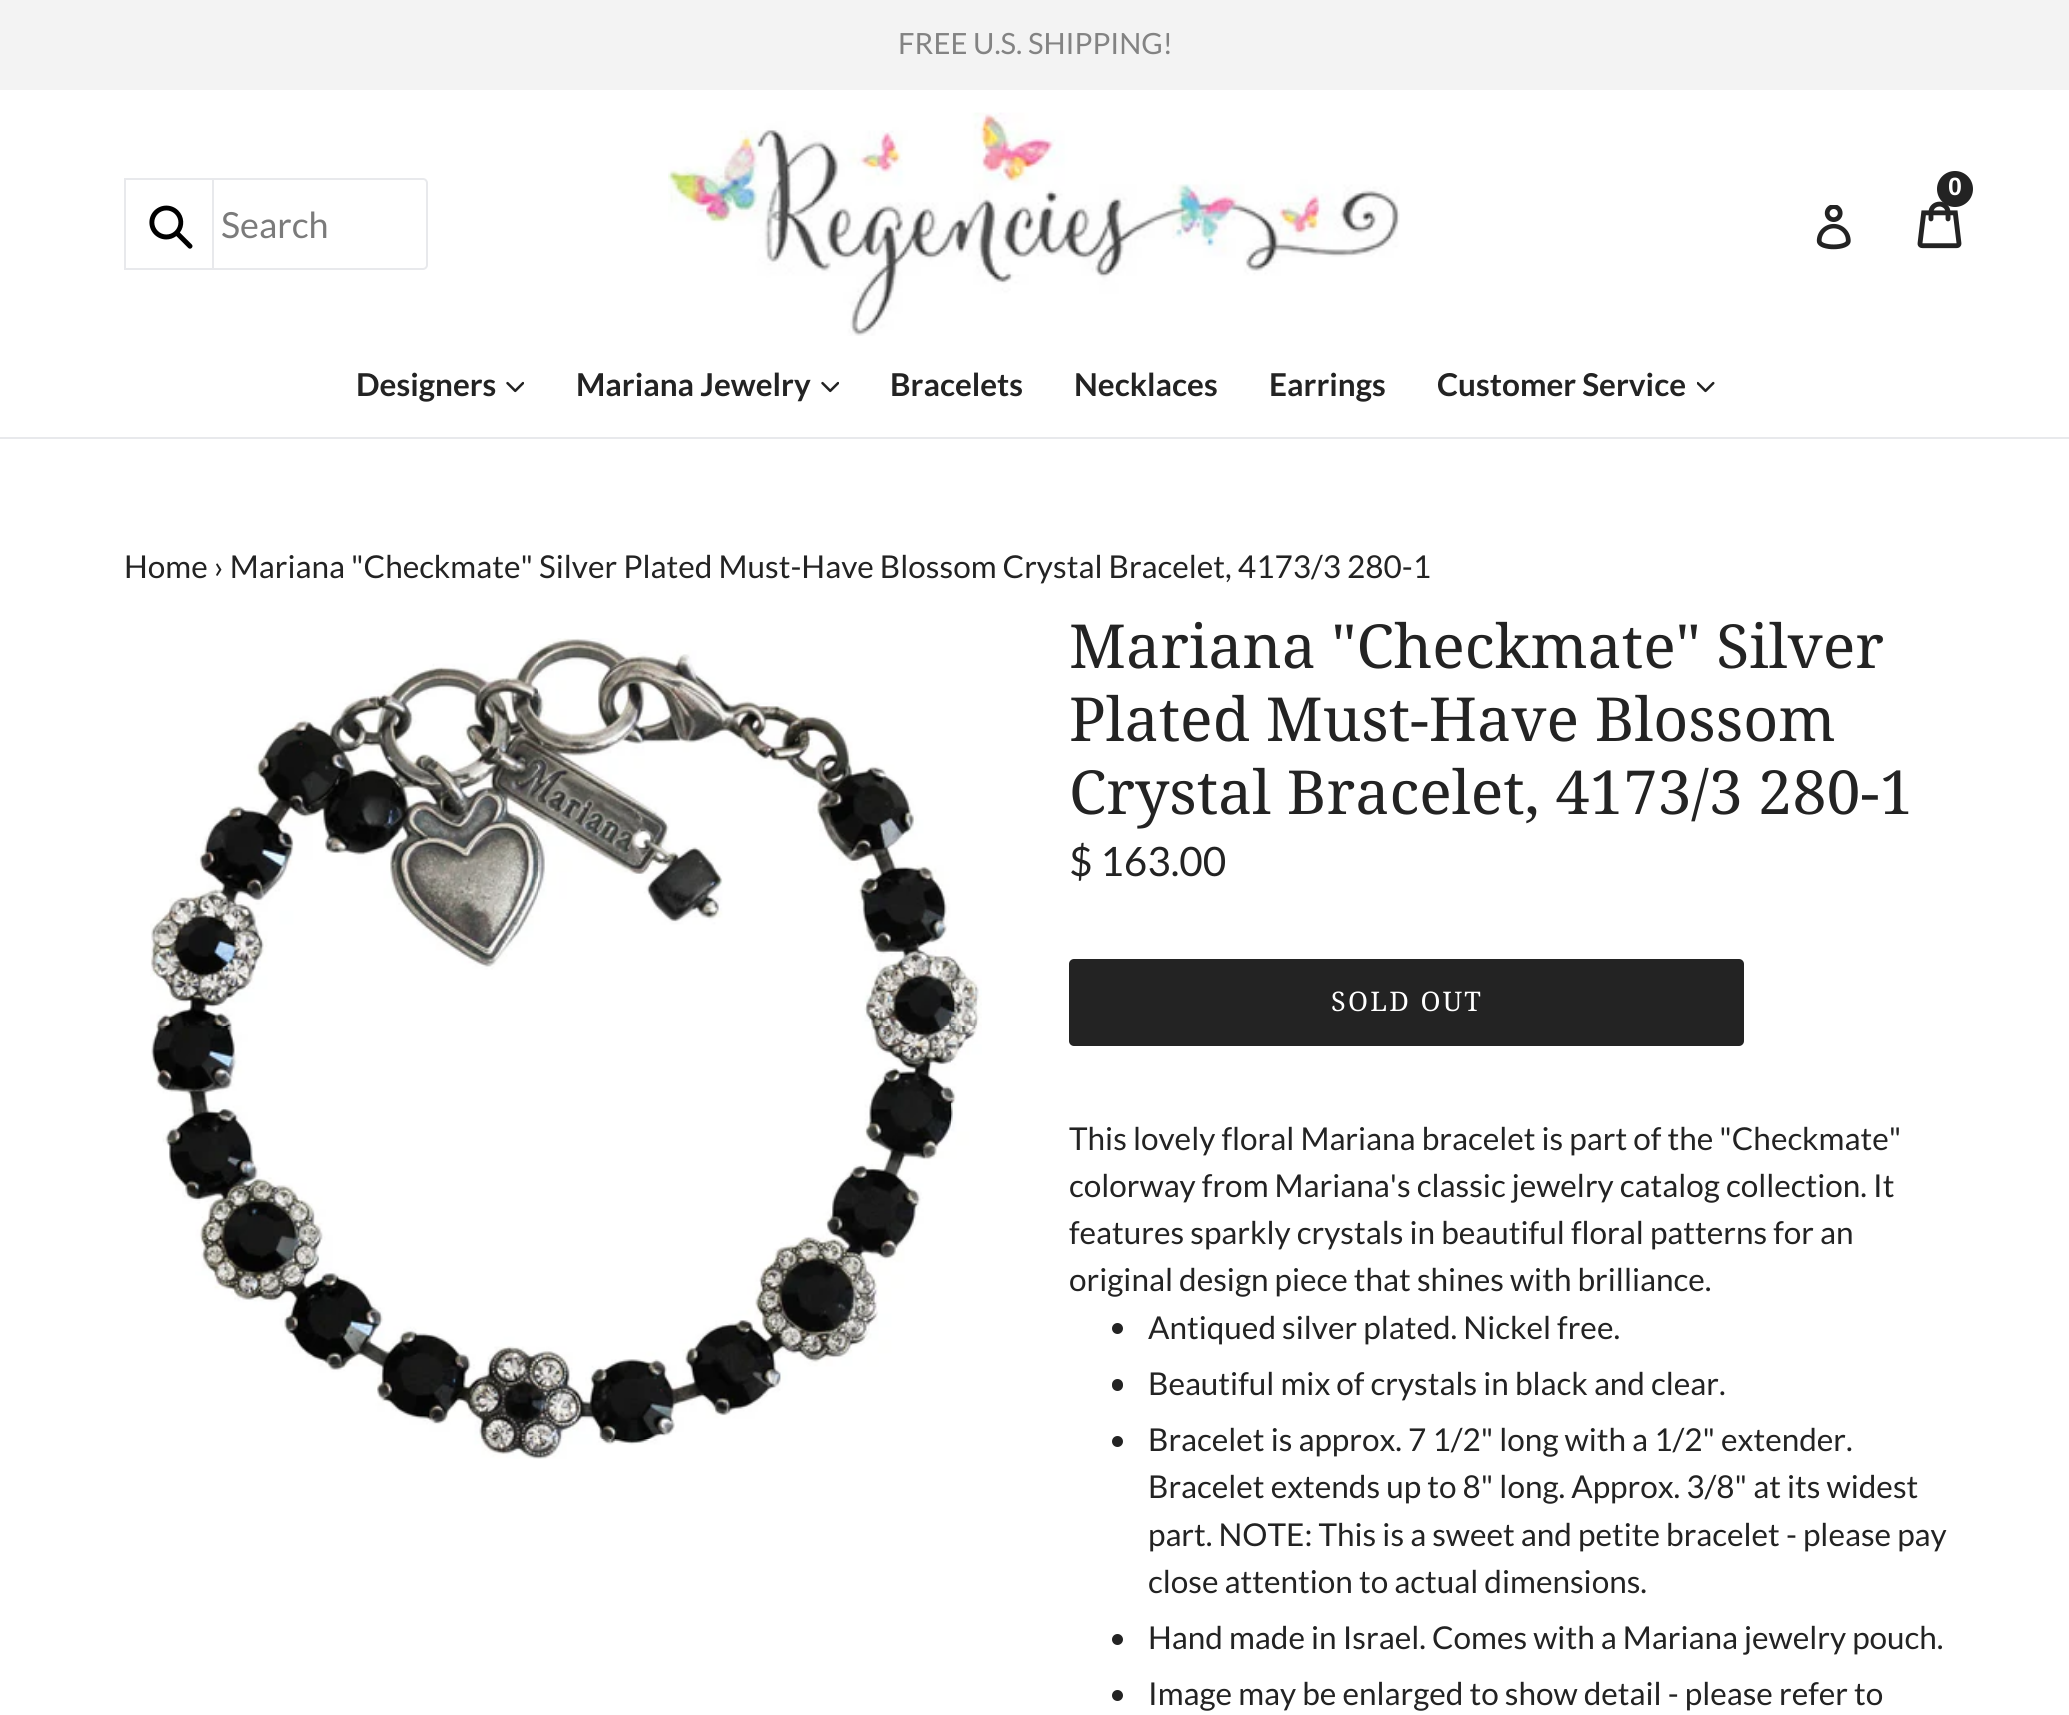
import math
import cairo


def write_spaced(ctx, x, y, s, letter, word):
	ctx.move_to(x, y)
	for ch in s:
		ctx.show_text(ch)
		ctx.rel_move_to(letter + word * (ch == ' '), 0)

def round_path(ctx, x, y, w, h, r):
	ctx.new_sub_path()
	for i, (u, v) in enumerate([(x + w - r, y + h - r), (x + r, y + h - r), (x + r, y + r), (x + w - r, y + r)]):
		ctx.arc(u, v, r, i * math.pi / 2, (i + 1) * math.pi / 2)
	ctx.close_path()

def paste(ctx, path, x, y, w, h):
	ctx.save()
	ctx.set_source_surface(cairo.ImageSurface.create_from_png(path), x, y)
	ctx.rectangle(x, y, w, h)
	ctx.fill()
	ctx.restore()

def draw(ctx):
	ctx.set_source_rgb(1, 1, 1)
	ctx.paint()
	ctx.set_source_rgb(0.953, 0.953, 0.953)
	ctx.rectangle(0, 0, 2069, 90)
	ctx.fill()
	ctx.select_font_face('Lato')
	ctx.set_font_size(29.25)
	ctx.set_source_rgb(0.514, 0.514, 0.514)
	ctx.move_to(898, 54)
	ctx.show_text('FREE U.S. SHIPPING!')
	paste(ctx, 'media/1.png', 668, 112, 732, 224)
	paste(ctx, 'media/2.png', 1917, 201, 45, 48)
	ctx.set_source_rgb(0.137, 0.137, 0.137)
	ctx.arc(1955, 189, 18, 0, 2 * math.pi)
	ctx.fill()
	ctx.select_font_face('Liberation Sans', cairo.FONT_SLANT_NORMAL, cairo.FONT_WEIGHT_BOLD)
	ctx.set_font_size(25)
	ctx.set_source_rgb(1, 1, 1)
	ctx.move_to(1948, 195)
	ctx.show_text('0')
	paste(ctx, 'media/3.png', 1816, 205, 35, 45)
	round_path(ctx, 125, 179, 302, 90, 4)
	ctx.set_source_rgb(0.91, 0.914, 0.922)
	ctx.stroke()
	ctx.set_source_rgb(1, 1, 1)
	ctx.rectangle(126, 180, 2, 88)
	ctx.fill()
	ctx.rectangle(125, 179, 88, 90)
	ctx.set_source_rgb(0.91, 0.914, 0.922)
	ctx.stroke()
	paste(ctx, 'media/4.png', 149, 205, 44, 44)
	ctx.select_font_face('Lato')
	ctx.set_font_size(36)
	ctx.set_source_rgb(0.482, 0.482, 0.482)
	ctx.move_to(221, 238)
	ctx.show_text('Search')
	ctx.set_source_rgb(0.91, 0.914, 0.922)
	ctx.rectangle(0, 437, 2069, 2)
	ctx.fill()
	ctx.select_font_face('Lato', cairo.FONT_SLANT_NORMAL, cairo.FONT_WEIGHT_BOLD)
	ctx.set_font_size(31.5)
	ctx.set_source_rgb(0.137, 0.137, 0.137)
	ctx.move_to(356, 396)
	ctx.show_text('Designers')
	paste(ctx, 'media/5.png', 506, 381, 18, 12)
	ctx.move_to(576, 396)
	ctx.show_text('Mariana Jewelry')
	paste(ctx, 'media/5.png', 821, 381, 18, 12)
	for x, y, s in [
		(890, 396, 'Bracelets'),
		(1074, 396, 'Necklaces'),
		(1269, 396, 'Earrings'),
		(1437, 396, 'Customer Service'),
	]:
		ctx.move_to(x, y)
		ctx.show_text(s)
	paste(ctx, 'media/6.png', 1697, 381, 18, 12)
	ctx.select_font_face('Lato')
	ctx.move_to(124, 578)
	ctx.show_text('Home › Mariana "Checkmate" Silver Plated Must-Have Blossom Crystal Bracelet, 4173/3 280-1')
	paste(ctx, 'media/7.png', 150, 638, 832, 821)
	ctx.select_font_face('Droid Serif')
	ctx.set_font_size(60.75)
	for x, y, s in [
		(1069, 668, 'Mariana "Checkmate" Silver'),
		(1069, 741, 'Plated Must-Have Blossom'),
		(1069, 814, 'Crystal Bracelet, 4173/3 280-1'),
	]:
		ctx.move_to(x, y)
		ctx.show_text(s)
	ctx.select_font_face('Lato')
	ctx.set_font_size(40.5)
	ctx.move_to(1069, 876)
	ctx.show_text('$ 163.00')
	round_path(ctx, 1069, 959, 675, 87, 5)
	ctx.fill()
	ctx.select_font_face('Droid Serif')
	ctx.set_font_size(27)
	ctx.set_source_rgb(1, 1, 1)
	write_spaced(ctx, 1331, 1011, 'SOLD OUT', 2.25, 0)
	ctx.select_font_face('Lato')
	ctx.set_font_size(31.5)
	ctx.set_source_rgb(0.137, 0.137, 0.137)
	for x, y, s in [
		(1069, 1150, 'This lovely floral Mariana bracelet is part of the "Checkmate"'),
		(1069, 1197, 'colorway from Mariana\'s classic jewelry catalog collection. It'),
		(1069, 1244, 'features sparkly crystals in beautiful floral patterns for an'),
		(1069, 1291, 'original design piece that shines with brilliance.'),
	]:
		ctx.move_to(x, y)
		ctx.show_text(s)
	ctx.new_path()
	ctx.arc(1117.5, 1328.5, 5.5, 0, 2 * math.pi)
	ctx.fill()
	ctx.move_to(1148, 1339)
	ctx.show_text('Antiqued silver plated. Nickel free.')
	round_path(ctx, 1112, 1379, 11, 12, 5.5)
	ctx.fill()
	ctx.move_to(1148, 1395)
	ctx.show_text('Beautiful mix of crystals in black and clear.')
	ctx.new_path()
	ctx.arc(1117.5, 1441.5, 5.5, 0, 2 * math.pi)
	ctx.fill()
	for x, y, s in [
		(1148, 1451, 'Bracelet is approx. 7 1/2" long with a 1/2" extender.'),
		(1148, 1498, 'Bracelet extends up to 8" long. Approx. 3/8" at its widest'),
		(1148, 1546, 'part. NOTE: This is a sweet and petite bracelet - please pay'),
		(1148, 1593, 'close attention to actual dimensions.'),
	]:
		ctx.move_to(x, y)
		ctx.show_text(s)
	ctx.new_path()
	ctx.arc(1117.5, 1639.5, 5.5, 0, 2 * math.pi)
	ctx.fill()
	ctx.move_to(1148, 1649)
	ctx.show_text('Hand made in Israel. Comes with a Mariana jewelry pouch.')
	ctx.new_path()
	ctx.arc(1117.5, 1695.5, 5.5, 0, 2 * math.pi)
	ctx.fill()
	ctx.move_to(1148, 1705)
	ctx.show_text('Image may be enlarged to show detail - please refer to')


surface = cairo.ImageSurface(cairo.FORMAT_RGB24, 2069, 1715)
ctx = cairo.Context(surface)
options = cairo.FontOptions()
options.set_hint_metrics(cairo.HINT_METRICS_OFF)
options.set_hint_style(cairo.HINT_STYLE_NONE)
ctx.set_font_options(options)
ctx.set_miter_limit(4)
draw(ctx)
surface.write_to_png('image.png')
